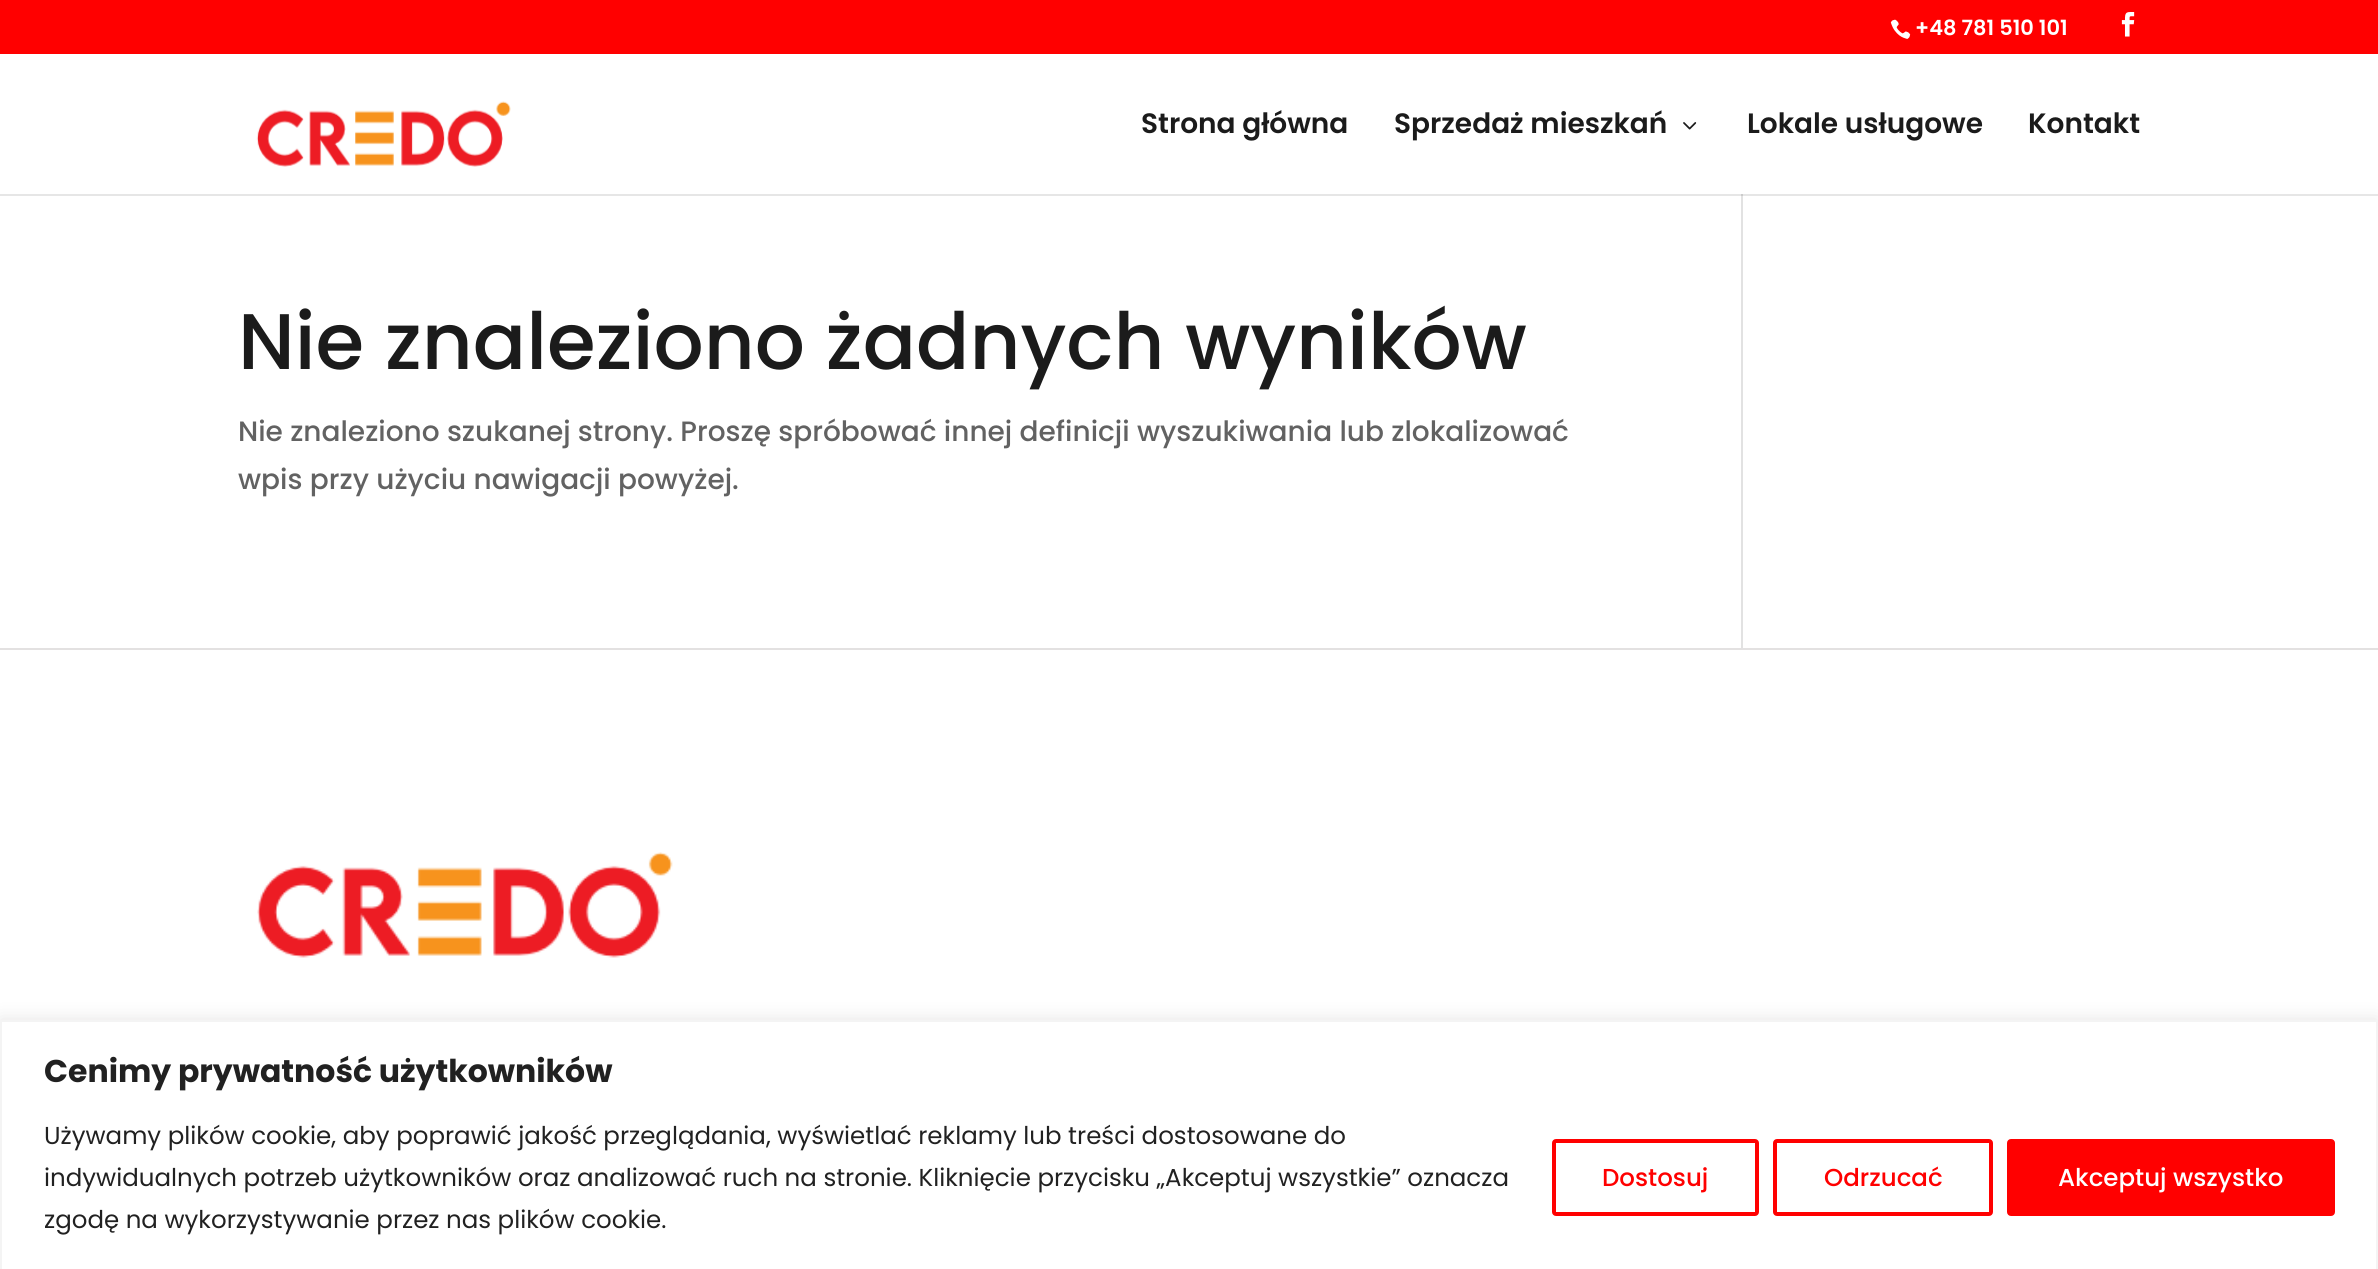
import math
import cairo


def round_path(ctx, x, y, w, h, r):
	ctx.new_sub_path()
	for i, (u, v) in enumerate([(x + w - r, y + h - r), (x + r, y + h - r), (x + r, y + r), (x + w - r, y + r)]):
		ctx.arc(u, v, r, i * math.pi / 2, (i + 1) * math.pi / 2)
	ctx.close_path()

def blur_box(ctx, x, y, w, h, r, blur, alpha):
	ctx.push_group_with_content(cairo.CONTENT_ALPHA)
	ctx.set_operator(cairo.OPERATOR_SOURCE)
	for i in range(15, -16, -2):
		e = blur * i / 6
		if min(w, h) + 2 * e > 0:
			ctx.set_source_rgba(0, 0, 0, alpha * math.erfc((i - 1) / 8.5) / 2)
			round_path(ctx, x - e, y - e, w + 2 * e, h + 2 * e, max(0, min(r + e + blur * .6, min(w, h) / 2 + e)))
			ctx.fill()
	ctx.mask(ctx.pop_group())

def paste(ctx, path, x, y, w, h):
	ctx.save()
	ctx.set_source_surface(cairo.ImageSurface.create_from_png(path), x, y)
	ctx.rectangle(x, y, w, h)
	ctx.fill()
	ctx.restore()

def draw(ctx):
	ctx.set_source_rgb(1, 1, 1)
	ctx.paint()
	ctx.set_source_rgb(1, 0, 0)
	ctx.rectangle(0, 0, 2378, 54)
	ctx.fill()
	paste(ctx, 'media/1.png', 1890, 19, 21, 20)
	ctx.select_font_face('Poppins SemiBold')
	ctx.set_font_size(21)
	ctx.set_source_rgb(1, 1, 1)
	ctx.move_to(1915, 35)
	ctx.show_text('+48 781 510 101')
	paste(ctx, 'media/2.png', 2121, 12, 14, 25)
	paste(ctx, 'media/3.png', 256, 101, 255, 66)
	ctx.set_font_size(28)
	ctx.set_source_rgb(0.106, 0.106, 0.106)
	ctx.move_to(1141, 133)
	ctx.show_text('Strona główna')
	ctx.move_to(1394, 133)
	ctx.show_text('Sprzedaż mieszkań')
	paste(ctx, 'media/4.png', 1683, 122, 14, 8)
	ctx.move_to(1747, 133)
	ctx.show_text('Lokale usługowe')
	ctx.move_to(2028, 133)
	ctx.show_text('Kontakt')
	ctx.set_source_rgb(0.902, 0.902, 0.902)
	ctx.rectangle(0, 194, 2378, 2)
	ctx.fill()
	ctx.select_font_face('Poppins Medium')
	ctx.set_font_size(78.75)
	ctx.set_source_rgb(0.106, 0.106, 0.106)
	ctx.move_to(238, 369)
	ctx.show_text('Nie znaleziono żadnych wyników')
	ctx.set_font_size(28)
	ctx.set_source_rgb(0.384, 0.384, 0.384)
	ctx.move_to(238, 441)
	ctx.show_text('Nie znaleziono szukanej strony. Proszę spróbować innej definicji wyszukiwania lub zlokalizować')
	ctx.move_to(238, 489)
	ctx.show_text('wpis przy użyciu nawigacji powyżej.')
	ctx.set_source_rgb(0.886, 0.886, 0.886)
	ctx.rectangle(1741, 194, 2, 454)
	ctx.fill()
	ctx.set_source_rgb(0.796, 0.796, 0.796)
	ctx.rectangle(1741, 194, 2, 2)
	ctx.fill()
	ctx.set_source_rgb(0.89, 0.882, 0.882)
	ctx.rectangle(0, 648, 2378, 2)
	ctx.fill()
	paste(ctx, 'media/5.png', 257, 852, 416, 106)
	ctx.set_source_rgb(0.675, 0.671, 0.671)
	blur_box(ctx, 0, 1019, 2378, 250, 0, 9, 0.3)
	ctx.set_source_rgb(1, 1, 1)
	ctx.rectangle(1, 1021, 2376, 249)
	ctx.fill_preserve()
	ctx.set_source_rgb(0.957, 0.957, 0.957)
	ctx.stroke()
	ctx.select_font_face('Poppins', cairo.FONT_SLANT_NORMAL, cairo.FONT_WEIGHT_BOLD)
	ctx.set_font_size(31.5)
	ctx.set_source_rgb(0.129, 0.129, 0.129)
	ctx.move_to(44, 1082)
	ctx.show_text('Cenimy prywatność użytkowników')
	ctx.select_font_face('Poppins')
	ctx.set_font_size(24.5)
	for x, y, s in [
		(44, 1144, 'Używamy plików cookie, aby poprawić jakość przeglądania, wyświetlać reklamy lub treści dostosowane do'),
		(44, 1186, 'indywidualnych potrzeb użytkowników oraz analizować ruch na stronie. Kliknięcie przycisku „Akceptuj wszystkie” oznacza'),
		(44, 1228, 'zgodę na wykorzystywanie przez nas plików cookie.'),
	]:
		ctx.move_to(x, y)
		ctx.show_text(s)
	round_path(ctx, 1554, 1141, 203, 73, 2)
	ctx.set_source_rgb(1, 0, 0)
	ctx.set_line_width(4)
	ctx.stroke()
	ctx.select_font_face('Poppins Medium')
	ctx.move_to(1602, 1186)
	ctx.show_text('Dostosuj')
	round_path(ctx, 1775, 1141, 216, 73, 2)
	ctx.stroke()
	ctx.move_to(1824, 1186)
	ctx.show_text('Odrzucać')
	round_path(ctx, 2009, 1141, 324, 73, 2)
	ctx.fill_preserve()
	ctx.stroke()
	ctx.set_source_rgb(1, 1, 1)
	ctx.move_to(2058, 1186)
	ctx.show_text('Akceptuj wszystko')


surface = cairo.ImageSurface(cairo.FORMAT_RGB24, 2378, 1269)
ctx = cairo.Context(surface)
options = cairo.FontOptions()
options.set_hint_metrics(cairo.HINT_METRICS_OFF)
options.set_hint_style(cairo.HINT_STYLE_NONE)
ctx.set_font_options(options)
ctx.set_miter_limit(4)
draw(ctx)
surface.write_to_png('image.png')
